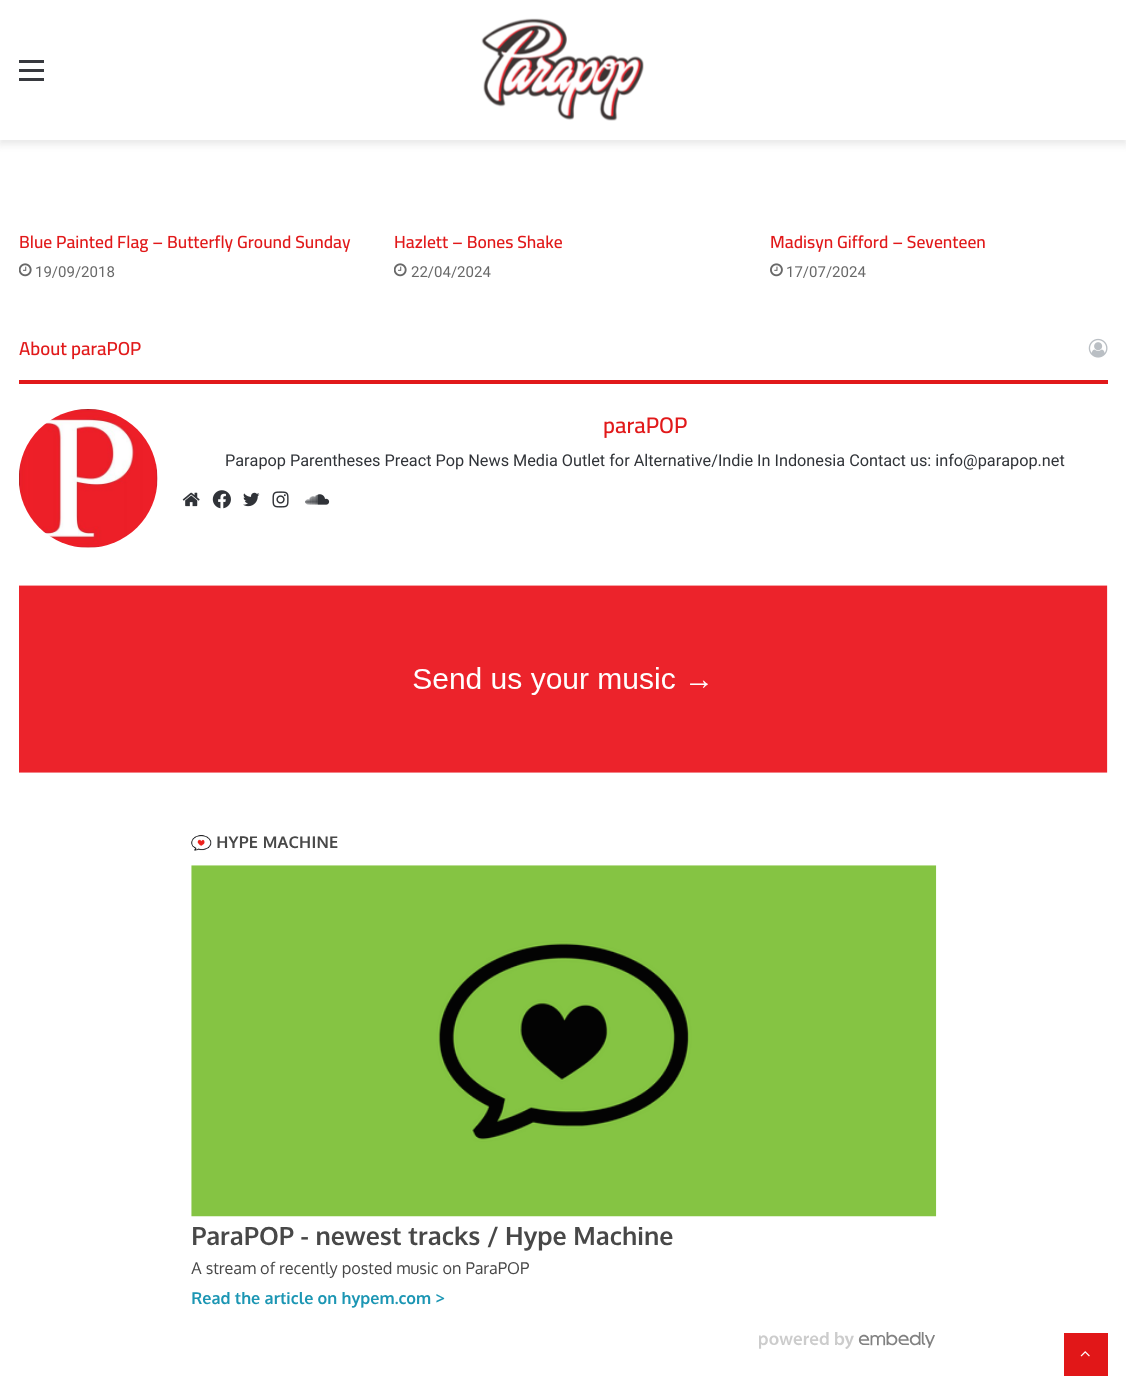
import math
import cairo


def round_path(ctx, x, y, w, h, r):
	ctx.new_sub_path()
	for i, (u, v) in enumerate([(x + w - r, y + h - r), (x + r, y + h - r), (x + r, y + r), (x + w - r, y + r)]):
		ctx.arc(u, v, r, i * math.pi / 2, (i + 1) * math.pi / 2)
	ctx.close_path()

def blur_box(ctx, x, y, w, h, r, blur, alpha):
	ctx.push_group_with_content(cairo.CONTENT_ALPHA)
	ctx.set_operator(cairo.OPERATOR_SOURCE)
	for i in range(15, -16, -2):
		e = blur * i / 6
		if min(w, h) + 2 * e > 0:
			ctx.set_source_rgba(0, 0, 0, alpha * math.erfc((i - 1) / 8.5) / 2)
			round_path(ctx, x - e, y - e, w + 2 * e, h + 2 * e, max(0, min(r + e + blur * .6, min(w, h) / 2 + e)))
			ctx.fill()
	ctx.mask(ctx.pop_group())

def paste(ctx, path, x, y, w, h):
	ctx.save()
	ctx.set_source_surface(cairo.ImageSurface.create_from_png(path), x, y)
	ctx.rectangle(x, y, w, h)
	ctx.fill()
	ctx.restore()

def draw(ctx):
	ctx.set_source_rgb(1, 1, 1)
	ctx.paint()
	ctx.set_source_rgb(0, 0, 0)
	blur_box(ctx, 0, 4, 1126, 140, 0, 4.5, 0.1)
	ctx.set_source_rgb(1, 1, 1)
	ctx.rectangle(0, 0, 1126, 140)
	ctx.fill()
	ctx.set_source_rgb(0.216, 0.224, 0.243)
	ctx.rectangle(19, 69, 25, 3)
	ctx.rectangle(19, 60, 25, 3)
	ctx.rectangle(19, 78, 25, 3)
	ctx.fill()
	paste(ctx, 'media/1.png', 481, 18, 163, 103)
	ctx.select_font_face('Cairo SemiBold')
	ctx.set_font_size(17.5)
	ctx.set_source_rgb(0.882, 0.098, 0.102)
	ctx.move_to(19, 248)
	ctx.show_text('Blue Painted Flag – Butterfly Ground Sunday')
	paste(ctx, 'media/2.png', 19, 263, 13, 14)
	ctx.select_font_face('Roboto')
	ctx.set_font_size(15)
	ctx.set_source_rgb(0.408, 0.408, 0.408)
	ctx.move_to(35, 277)
	ctx.show_text('19/09/2018')
	ctx.select_font_face('Cairo SemiBold')
	ctx.set_font_size(17.5)
	ctx.set_source_rgb(0.882, 0.098, 0.102)
	ctx.move_to(394, 248)
	ctx.show_text('Hazlett – Bones Shake')
	paste(ctx, 'media/2.png', 394, 263, 13, 14)
	ctx.select_font_face('Roboto')
	ctx.set_font_size(15)
	ctx.set_source_rgb(0.408, 0.408, 0.408)
	ctx.move_to(411, 277)
	ctx.show_text('22/04/2024')
	ctx.select_font_face('Cairo SemiBold')
	ctx.set_font_size(17.5)
	ctx.set_source_rgb(0.882, 0.098, 0.102)
	ctx.move_to(770, 248)
	ctx.show_text('Madisyn Gifford – Seventeen')
	paste(ctx, 'media/3.png', 770, 263, 13, 14)
	ctx.select_font_face('Roboto')
	ctx.set_font_size(15)
	ctx.set_source_rgb(0.408, 0.408, 0.408)
	ctx.move_to(786, 277)
	ctx.show_text('17/07/2024')
	ctx.set_source_rgb(0.882, 0.098, 0.102)
	ctx.rectangle(19, 380, 1089, 4)
	ctx.fill()
	ctx.select_font_face('Cairo SemiBold')
	ctx.set_font_size(18.75)
	ctx.move_to(19, 355)
	ctx.show_text('About paraPOP')
	paste(ctx, 'media/4.png', 1088, 338, 20, 20)
	paste(ctx, 'media/5.png', 19, 409, 139, 139)
	ctx.set_font_size(22.5)
	ctx.move_to(603, 433)
	ctx.show_text('paraPOP')
	ctx.select_font_face('Roboto')
	ctx.set_font_size(16.25)
	ctx.set_source_rgb(0.188, 0.2, 0.22)
	ctx.move_to(225, 466)
	ctx.show_text('Parapop Parentheses Preact Pop News Media Outlet for Alternative/Indie In Indonesia Contact us: info@parapop.net')
	paste(ctx, 'media/6.png', 182, 492, 18, 15)
	paste(ctx, 'media/7.png', 212, 490, 19, 19)
	paste(ctx, 'media/8.png', 243, 492, 17, 15)
	paste(ctx, 'media/9.png', 272, 491, 17, 17)
	paste(ctx, 'media/10.png', 305, 494, 25, 11)
	paste(ctx, 'media/11.png', 19, 585, 1089, 188)
	paste(ctx, 'media/12.png', 191, 835, 746, 514)
	ctx.set_source_rgb(0.882, 0.09, 0.094)
	ctx.rectangle(1064, 1333, 44, 43)
	ctx.fill()
	paste(ctx, 'media/13.png', 1080, 1351, 10, 6)


surface = cairo.ImageSurface(cairo.FORMAT_RGB24, 1126, 1394)
ctx = cairo.Context(surface)
options = cairo.FontOptions()
options.set_hint_metrics(cairo.HINT_METRICS_OFF)
options.set_hint_style(cairo.HINT_STYLE_NONE)
ctx.set_font_options(options)
ctx.set_miter_limit(4)
draw(ctx)
surface.write_to_png('image.png')
